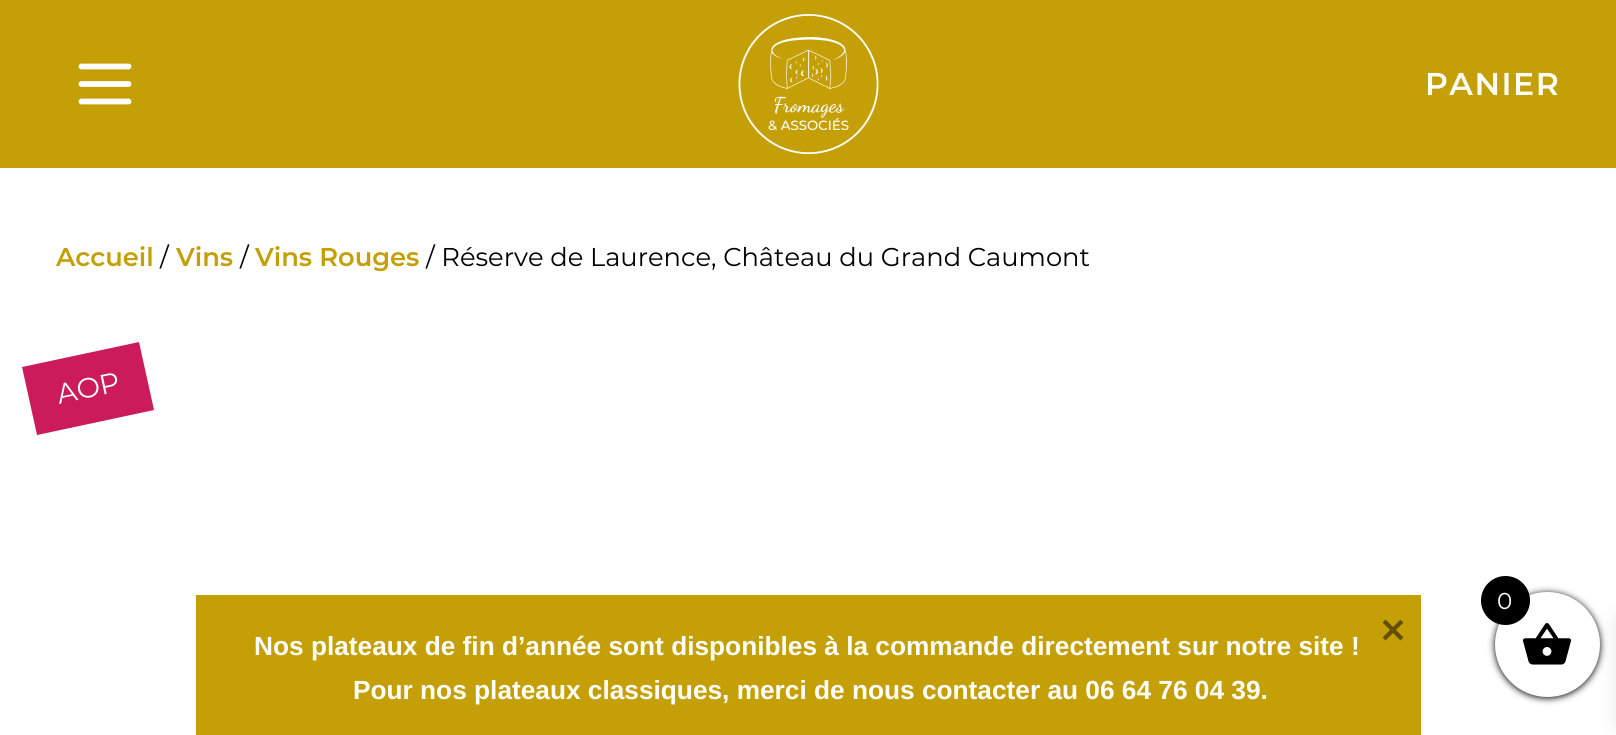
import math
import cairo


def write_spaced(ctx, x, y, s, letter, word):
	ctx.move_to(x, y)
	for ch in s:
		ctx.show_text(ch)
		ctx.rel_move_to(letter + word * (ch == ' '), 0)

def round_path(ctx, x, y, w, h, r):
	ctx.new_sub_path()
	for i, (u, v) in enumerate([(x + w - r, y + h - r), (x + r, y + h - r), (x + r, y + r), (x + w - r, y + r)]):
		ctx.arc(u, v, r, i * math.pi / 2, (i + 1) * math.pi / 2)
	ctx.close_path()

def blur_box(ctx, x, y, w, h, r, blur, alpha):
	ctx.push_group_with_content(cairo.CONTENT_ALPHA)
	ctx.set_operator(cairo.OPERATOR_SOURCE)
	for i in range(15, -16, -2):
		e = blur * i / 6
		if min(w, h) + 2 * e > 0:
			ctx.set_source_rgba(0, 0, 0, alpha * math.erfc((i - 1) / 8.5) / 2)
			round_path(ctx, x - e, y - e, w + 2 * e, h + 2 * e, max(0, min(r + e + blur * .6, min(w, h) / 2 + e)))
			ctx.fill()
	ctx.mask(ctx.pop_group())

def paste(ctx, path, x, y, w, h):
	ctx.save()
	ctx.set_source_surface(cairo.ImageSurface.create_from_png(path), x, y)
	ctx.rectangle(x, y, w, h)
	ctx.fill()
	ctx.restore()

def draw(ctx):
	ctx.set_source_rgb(1, 1, 1)
	ctx.paint()
	ctx.set_source_rgb(0.769, 0.624, 0.02)
	ctx.rectangle(0, 0, 1616, 168)
	ctx.fill()
	ctx.new_path()
	ctx.move_to(81.5, 66.5)
	ctx.line_to(128.5, 66.5)
	ctx.move_to(81.5, 84)
	ctx.line_to(128.5, 84)
	ctx.move_to(81.5, 101.5)
	ctx.line_to(128.5, 101.5)
	ctx.set_source_rgb(1, 1, 1)
	ctx.set_line_width(5.8)
	ctx.set_line_cap(cairo.LINE_CAP_ROUND)
	ctx.set_line_join(cairo.LINE_JOIN_ROUND)
	ctx.stroke()
	paste(ctx, 'media/1.png', 738, 14, 141, 140)
	ctx.select_font_face('Montserrat SemiBold')
	ctx.set_font_size(31.5)
	write_spaced(ctx, 1425, 95, 'PANIER', 1.5, 0)
	ctx.set_font_size(25.75)
	ctx.set_source_rgb(0.769, 0.624, 0.02)
	ctx.move_to(56, 266)
	ctx.show_text('Accueil')
	ctx.select_font_face('Montserrat')
	ctx.set_source_rgb(0, 0, 0)
	ctx.move_to(160, 266)
	ctx.show_text('/')
	ctx.select_font_face('Montserrat SemiBold')
	ctx.set_source_rgb(0.769, 0.624, 0.02)
	ctx.move_to(176, 266)
	ctx.show_text('Vins')
	ctx.select_font_face('Montserrat')
	ctx.set_source_rgb(0, 0, 0)
	ctx.move_to(240, 266)
	ctx.show_text('/')
	ctx.select_font_face('Montserrat SemiBold')
	ctx.set_source_rgb(0.769, 0.624, 0.02)
	ctx.move_to(255, 266)
	ctx.show_text('Vins Rouges')
	ctx.select_font_face('Montserrat')
	ctx.set_source_rgb(0, 0, 0)
	ctx.move_to(426, 266)
	ctx.show_text('/ Réserve de Laurence, Château du Grand Caumont')
	ctx.set_source_rgb(0.796, 0.106, 0.353)
	ctx.new_path()
	ctx.move_to(22, 367)
	ctx.line_to(139, 342)
	ctx.line_to(154, 410)
	ctx.line_to(37, 435)
	ctx.close_path()
	ctx.fill()
	ctx.set_font_size(28)
	ctx.set_source_rgb(1, 1, 1)
	ctx.save()
	ctx.translate(59, 404)
	ctx.rotate(-12 * math.pi / 180)
	ctx.move_to(0, 0)
	ctx.show_text('AOP')
	ctx.restore()
	ctx.set_source_rgb(0, 0, 0)
	blur_box(ctx, 1495, 593, 105, 105, 52.5, 3.5, 1)
	blur_box(ctx, 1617, 618, 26, 108, 0, 9, 0.1)
	ctx.set_source_rgb(1, 1, 1)
	ctx.arc(1547.5, 644.5, 52.5, 0, 2 * math.pi)
	ctx.fill()
	paste(ctx, 'media/2.png', 1522, 623, 50, 42)
	ctx.set_source_rgb(0, 0, 0)
	ctx.arc(1505.5, 600.5, 24.5, 0, 2 * math.pi)
	ctx.fill()
	ctx.set_font_size(23)
	ctx.set_source_rgb(1, 1, 1)
	ctx.move_to(1497, 609)
	ctx.show_text('0')
	ctx.set_source_rgb(0.769, 0.624, 0.02)
	ctx.rectangle(196, 595, 1225, 140)
	ctx.fill()
	paste(ctx, 'media/3.png', 1382, 619, 22, 22)
	ctx.select_font_face('Liberation Sans', cairo.FONT_SLANT_NORMAL, cairo.FONT_WEIGHT_BOLD)
	ctx.set_font_size(26.25)
	ctx.set_source_rgb(1, 1, 1)
	ctx.move_to(254, 655)
	ctx.show_text('Nos plateaux de fin d’année sont disponibles à la commande directement sur notre site !')
	ctx.move_to(353, 699)
	ctx.show_text('Pour nos plateaux classiques, merci de nous contacter au 06 64 76 04 39.')


surface = cairo.ImageSurface(cairo.FORMAT_RGB24, 1616, 735)
ctx = cairo.Context(surface)
options = cairo.FontOptions()
options.set_hint_metrics(cairo.HINT_METRICS_OFF)
options.set_hint_style(cairo.HINT_STYLE_NONE)
ctx.set_font_options(options)
ctx.set_miter_limit(4)
draw(ctx)
surface.write_to_png('image.png')
